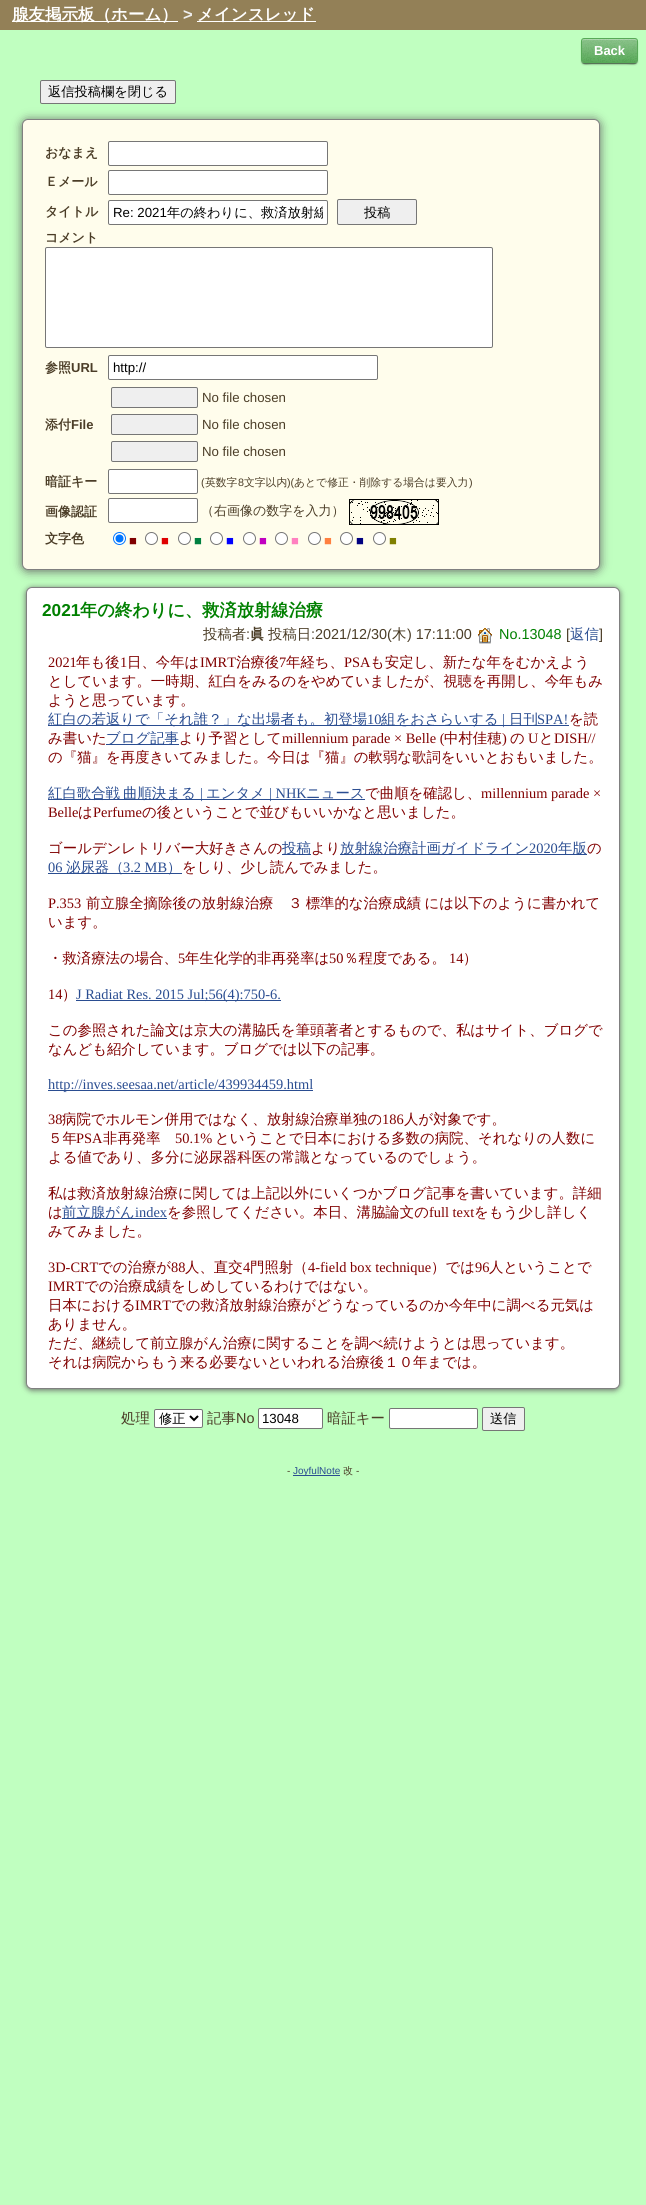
import math
import cairo


def write_spaced(ctx, x, y, s, letter, word):
	ctx.move_to(x, y)
	for ch in s:
		ctx.show_text(ch)
		ctx.rel_move_to(letter + word * (ch == ' '), 0)

def round_path(ctx, x, y, w, h, r):
	ctx.new_sub_path()
	for i, (u, v) in enumerate([(x + w - r, y + h - r), (x + r, y + h - r), (x + r, y + r), (x + w - r, y + r)]):
		ctx.arc(u, v, r, i * math.pi / 2, (i + 1) * math.pi / 2)
	ctx.close_path()

def blur_box(ctx, x, y, w, h, r, blur, alpha):
	ctx.push_group_with_content(cairo.CONTENT_ALPHA)
	ctx.set_operator(cairo.OPERATOR_SOURCE)
	for i in range(15, -16, -2):
		e = blur * i / 6
		if min(w, h) + 2 * e > 0:
			ctx.set_source_rgba(0, 0, 0, alpha * math.erfc((i - 1) / 8.5) / 2)
			round_path(ctx, x - e, y - e, w + 2 * e, h + 2 * e, max(0, min(r + e + blur * .6, min(w, h) / 2 + e)))
			ctx.fill()
	ctx.mask(ctx.pop_group())

def paste(ctx, path, x, y, w, h):
	ctx.save()
	ctx.set_source_surface(cairo.ImageSurface.create_from_png(path), x, y)
	ctx.rectangle(x, y, w, h)
	ctx.fill()
	ctx.restore()

def draw(ctx):
	ctx.set_source_rgb(0.753, 1, 0.753)
	ctx.paint()
	ctx.set_source_rgb(0.576, 0.502, 0.341)
	ctx.rectangle(0, 0, 646, 30)
	ctx.fill()
	ctx.set_source_rgb(1, 1, 1)
	ctx.rectangle(12, 21, 166, 1)
	ctx.fill()
	ctx.select_font_face('WenQuanYi Zen Hei', cairo.FONT_SLANT_NORMAL, cairo.FONT_WEIGHT_BOLD)
	ctx.set_font_size(16.5)
	ctx.move_to(12, 20)
	ctx.show_text('腺友掲示板（ホーム）')
	ctx.select_font_face('Liberation Sans', cairo.FONT_SLANT_NORMAL, cairo.FONT_WEIGHT_BOLD)
	ctx.set_source_rgb(0.933, 0.933, 0.933)
	ctx.move_to(183, 20)
	ctx.show_text('>')
	ctx.set_source_rgb(1, 1, 1)
	ctx.rectangle(197, 21, 119, 1)
	ctx.fill()
	ctx.select_font_face('WenQuanYi Zen Hei', cairo.FONT_SLANT_NORMAL, cairo.FONT_WEIGHT_BOLD)
	ctx.move_to(197, 20)
	ctx.show_text('メインスレッド')
	ctx.set_source_rgb(0, 0, 0)
	blur_box(ctx, 582, 41, 55, 23, 2, 1, 0.5)
	ctx.set_source_rgba(0, 0, 0, 0.3)
	ctx.new_path()
	ctx.move_to(581, 60)
	ctx.curve_to(581, 66, 588, 64, 592, 64)
	ctx.line_to(626, 64)
	ctx.curve_to(631, 64, 638, 66, 638, 60)
	ctx.curve_to(638, 62, 637, 63, 635, 63)
	ctx.line_to(584, 63)
	ctx.curve_to(582, 63, 581, 62, 581, 60)
	ctx.close_path()
	ctx.fill()
	ctx.set_source_rgb(0.341, 0.663, 0.341)
	round_path(ctx, 582, 39, 55, 23, 2)
	ctx.fill()
	paste(ctx, 'media/1.png', 582, 39, 55, 23)
	ctx.set_source_rgba(1, 1, 1, 0.3)
	ctx.new_path()
	ctx.move_to(584, 40)
	ctx.line_to(635, 40)
	ctx.curve_to(636, 40, 637, 41, 637, 42)
	ctx.curve_to(637, 37, 630, 39, 626, 39)
	ctx.line_to(592, 39)
	ctx.curve_to(589, 39, 582, 37, 582, 42)
	ctx.curve_to(582, 41, 583, 40, 584, 40)
	ctx.close_path()
	ctx.fill()
	round_path(ctx, 581.5, 38.5, 56, 24, 2.5)
	ctx.set_source_rgb(0.341, 0.663, 0.341)
	ctx.set_line_width(1)
	ctx.stroke()
	ctx.select_font_face('Liberation Sans', cairo.FONT_SLANT_NORMAL, cairo.FONT_WEIGHT_BOLD)
	ctx.set_font_size(13)
	ctx.set_source_rgb(1, 1, 1)
	ctx.move_to(594, 55)
	ctx.show_text('Back')
	ctx.set_source_rgb(0.937, 0.937, 0.937)
	round_path(ctx, 40.5, 80.5, 135, 23, 1.5)
	ctx.fill_preserve()
	ctx.set_source_rgb(0.463, 0.463, 0.463)
	ctx.stroke()
	ctx.select_font_face('WenQuanYi Zen Hei Medium')
	ctx.set_font_size(13.25)
	ctx.set_source_rgb(0, 0, 0)
	ctx.move_to(48, 96)
	ctx.show_text('返信投稿欄を閉じる')
	ctx.set_source_rgb(0.4, 0.4, 0.4)
	blur_box(ctx, 22, 120, 578, 451, 6, 5, 1)
	ctx.set_source_rgb(1, 0.992, 0.925)
	round_path(ctx, 22.5, 119.5, 577, 450, 5.5)
	ctx.fill_preserve()
	ctx.set_source_rgb(0.502, 0.502, 0.502)
	ctx.stroke()
	ctx.select_font_face('WenQuanYi Zen Hei', cairo.FONT_SLANT_NORMAL, cairo.FONT_WEIGHT_BOLD)
	ctx.set_font_size(13)
	ctx.set_source_rgb(0.294, 0.239, 0.153)
	ctx.move_to(45, 157)
	ctx.show_text('おなまえ')
	ctx.set_source_rgb(1, 1, 1)
	round_path(ctx, 108.5, 141.5, 219, 24, 1.5)
	ctx.fill_preserve()
	ctx.set_source_rgb(0.463, 0.463, 0.463)
	ctx.stroke()
	ctx.set_source_rgb(0.294, 0.239, 0.153)
	ctx.move_to(45, 186)
	ctx.show_text('Ｅメール')
	ctx.set_source_rgb(1, 1, 1)
	round_path(ctx, 108.5, 170.5, 219, 24, 1.5)
	ctx.fill_preserve()
	ctx.set_source_rgb(0.463, 0.463, 0.463)
	ctx.stroke()
	ctx.set_source_rgb(0.294, 0.239, 0.153)
	ctx.move_to(45, 216)
	ctx.show_text('タイトル')
	ctx.set_source_rgb(1, 1, 1)
	round_path(ctx, 108.5, 200.5, 219, 24, 1.5)
	ctx.fill_preserve()
	ctx.set_source_rgb(0.463, 0.463, 0.463)
	ctx.stroke()
	ctx.select_font_face('Liberation Sans')
	ctx.set_font_size(13.25)
	ctx.set_source_rgb(0, 0, 0)
	ctx.move_to(113, 217)
	ctx.show_text('Re: 2021')
	ctx.save()
	ctx.rectangle(113, 204, 210, 18)
	ctx.clip()
	ctx.select_font_face('WenQuanYi Zen Hei Medium')
	ctx.move_to(167, 217)
	ctx.show_text('年の終わりに、救済放射線')
	ctx.restore()
	ctx.set_source_rgb(0.937, 0.937, 0.937)
	round_path(ctx, 337.5, 199.5, 79, 25, 1.5)
	ctx.fill_preserve()
	ctx.set_source_rgb(0.463, 0.463, 0.463)
	ctx.stroke()
	ctx.select_font_face('WenQuanYi Zen Hei Medium')
	ctx.set_source_rgb(0, 0, 0)
	ctx.move_to(364, 217)
	ctx.show_text('投稿')
	ctx.select_font_face('WenQuanYi Zen Hei', cairo.FONT_SLANT_NORMAL, cairo.FONT_WEIGHT_BOLD)
	ctx.set_font_size(13)
	ctx.set_source_rgb(0.294, 0.239, 0.153)
	ctx.move_to(45, 242)
	ctx.show_text('コメント')
	ctx.set_source_rgb(1, 1, 1)
	round_path(ctx, 45.5, 247.5, 447, 100, 1.5)
	ctx.fill_preserve()
	ctx.set_source_rgb(0.463, 0.463, 0.463)
	ctx.stroke()
	ctx.set_source_rgb(0.294, 0.239, 0.153)
	ctx.move_to(45, 372)
	ctx.show_text('参照')
	ctx.select_font_face('Liberation Sans', cairo.FONT_SLANT_NORMAL, cairo.FONT_WEIGHT_BOLD)
	ctx.move_to(71, 372)
	ctx.show_text('URL')
	ctx.set_source_rgb(1, 1, 1)
	round_path(ctx, 108.5, 355.5, 269, 24, 1.5)
	ctx.fill_preserve()
	ctx.set_source_rgb(0.463, 0.463, 0.463)
	ctx.stroke()
	ctx.select_font_face('Liberation Sans')
	ctx.set_font_size(13.25)
	ctx.set_source_rgb(0, 0, 0)
	ctx.move_to(113, 372)
	ctx.show_text('http://')
	ctx.select_font_face('WenQuanYi Zen Hei', cairo.FONT_SLANT_NORMAL, cairo.FONT_WEIGHT_BOLD)
	ctx.set_font_size(13)
	ctx.set_source_rgb(0.294, 0.239, 0.153)
	ctx.move_to(45, 429)
	ctx.show_text('添付')
	ctx.select_font_face('Liberation Sans', cairo.FONT_SLANT_NORMAL, cairo.FONT_WEIGHT_BOLD)
	ctx.move_to(71, 429)
	ctx.show_text('File')
	ctx.set_source_rgb(0.937, 0.937, 0.937)
	round_path(ctx, 111.5, 387.5, 86, 20, 1.5)
	ctx.fill_preserve()
	ctx.set_source_rgb(0.463, 0.463, 0.463)
	ctx.stroke()
	ctx.select_font_face('Liberation Sans')
	ctx.set_font_size(13.25)
	ctx.set_source_rgb(0.294, 0.239, 0.153)
	ctx.move_to(202, 402)
	ctx.show_text('No file chosen')
	ctx.set_source_rgb(0.937, 0.937, 0.937)
	round_path(ctx, 111.5, 414.5, 86, 20, 1.5)
	ctx.fill_preserve()
	ctx.set_source_rgb(0.463, 0.463, 0.463)
	ctx.stroke()
	ctx.set_source_rgb(0.294, 0.239, 0.153)
	ctx.move_to(202, 429)
	ctx.show_text('No file chosen')
	ctx.set_source_rgb(0.937, 0.937, 0.937)
	round_path(ctx, 111.5, 441.5, 86, 20, 1.5)
	ctx.fill_preserve()
	ctx.set_source_rgb(0.463, 0.463, 0.463)
	ctx.stroke()
	ctx.set_source_rgb(0.294, 0.239, 0.153)
	ctx.move_to(202, 456)
	ctx.show_text('No file chosen')
	ctx.select_font_face('WenQuanYi Zen Hei', cairo.FONT_SLANT_NORMAL, cairo.FONT_WEIGHT_BOLD)
	ctx.set_font_size(13)
	ctx.move_to(45, 486)
	ctx.show_text('暗証キー')
	ctx.set_source_rgb(1, 1, 1)
	round_path(ctx, 108.5, 469.5, 89, 24, 1.5)
	ctx.fill_preserve()
	ctx.set_source_rgb(0.463, 0.463, 0.463)
	ctx.stroke()
	ctx.select_font_face('Liberation Sans')
	ctx.set_font_size(10.8)
	ctx.set_source_rgb(0.294, 0.239, 0.153)
	ctx.move_to(201, 486)
	ctx.show_text('(')
	ctx.select_font_face('WenQuanYi Zen Hei Medium')
	ctx.move_to(205, 486)
	ctx.show_text('英数字')
	ctx.select_font_face('Liberation Sans')
	ctx.move_to(238, 486)
	ctx.show_text('8')
	ctx.select_font_face('WenQuanYi Zen Hei Medium')
	ctx.move_to(244, 486)
	ctx.show_text('文字以内')
	ctx.select_font_face('Liberation Sans')
	ctx.move_to(287, 486)
	ctx.show_text(')(')
	ctx.select_font_face('WenQuanYi Zen Hei Medium')
	ctx.move_to(294, 486)
	ctx.show_text('あとで修正・削除する場合は要入力')
	ctx.select_font_face('Liberation Sans')
	ctx.move_to(469, 486)
	ctx.show_text(')')
	ctx.select_font_face('WenQuanYi Zen Hei', cairo.FONT_SLANT_NORMAL, cairo.FONT_WEIGHT_BOLD)
	ctx.set_font_size(13)
	ctx.move_to(45, 516)
	ctx.show_text('画像認証')
	ctx.set_source_rgb(1, 1, 1)
	round_path(ctx, 108.5, 498.5, 89, 24, 1.5)
	ctx.fill_preserve()
	ctx.set_source_rgb(0.463, 0.463, 0.463)
	ctx.stroke()
	ctx.select_font_face('WenQuanYi Zen Hei Medium')
	ctx.set_source_rgb(0.294, 0.239, 0.153)
	ctx.move_to(201, 515)
	ctx.show_text('（右画像の数字を入力）')
	paste(ctx, 'media/2.png', 349, 499, 90, 26)
	ctx.select_font_face('WenQuanYi Zen Hei', cairo.FONT_SLANT_NORMAL, cairo.FONT_WEIGHT_BOLD)
	ctx.move_to(45, 543)
	ctx.show_text('文字色')
	ctx.set_source_rgb(1, 1, 1)
	ctx.new_path()
	ctx.arc(119.5, 538.5, 6, 0, 2 * math.pi)
	ctx.fill_preserve()
	ctx.set_source_rgb(0, 0.459, 1)
	ctx.stroke()
	ctx.arc(119.5, 538.5, 4, 0, 2 * math.pi)
	ctx.fill()
	ctx.select_font_face('Liberation Sans')
	ctx.set_source_rgb(0.502, 0, 0)
	ctx.move_to(129, 545)
	ctx.show_text('■')
	ctx.set_source_rgb(1, 1, 1)
	ctx.new_path()
	ctx.arc(151.5, 538.5, 6, 0, 2 * math.pi)
	ctx.fill_preserve()
	ctx.set_source_rgb(0.463, 0.463, 0.463)
	ctx.stroke()
	ctx.set_source_rgb(0.875, 0, 0)
	ctx.move_to(161, 545)
	ctx.show_text('■')
	ctx.set_source_rgb(1, 1, 1)
	ctx.new_path()
	ctx.arc(184.5, 538.5, 6, 0, 2 * math.pi)
	ctx.fill_preserve()
	ctx.set_source_rgb(0.463, 0.463, 0.463)
	ctx.stroke()
	ctx.set_source_rgb(0, 0.502, 0.251)
	ctx.move_to(194, 545)
	ctx.show_text('■')
	ctx.set_source_rgb(1, 1, 1)
	ctx.new_path()
	ctx.arc(216.5, 538.5, 6, 0, 2 * math.pi)
	ctx.fill_preserve()
	ctx.set_source_rgb(0.463, 0.463, 0.463)
	ctx.stroke()
	ctx.set_source_rgb(0, 0, 1)
	ctx.move_to(226, 545)
	ctx.show_text('■')
	ctx.set_source_rgb(1, 1, 1)
	ctx.new_path()
	ctx.arc(249.5, 538.5, 6, 0, 2 * math.pi)
	ctx.fill_preserve()
	ctx.set_source_rgb(0.463, 0.463, 0.463)
	ctx.stroke()
	ctx.set_source_rgb(0.757, 0, 0.757)
	ctx.move_to(259, 545)
	ctx.show_text('■')
	ctx.set_source_rgb(1, 1, 1)
	ctx.new_path()
	ctx.arc(281.5, 538.5, 6, 0, 2 * math.pi)
	ctx.fill_preserve()
	ctx.set_source_rgb(0.463, 0.463, 0.463)
	ctx.stroke()
	ctx.set_source_rgb(1, 0.502, 0.753)
	ctx.move_to(291, 545)
	ctx.show_text('■')
	ctx.set_source_rgb(1, 1, 1)
	ctx.new_path()
	ctx.arc(314.5, 538.5, 6, 0, 2 * math.pi)
	ctx.fill_preserve()
	ctx.set_source_rgb(0.463, 0.463, 0.463)
	ctx.stroke()
	ctx.set_source_rgb(1, 0.502, 0.251)
	ctx.move_to(324, 545)
	ctx.show_text('■')
	ctx.set_source_rgb(1, 1, 1)
	ctx.new_path()
	ctx.arc(346.5, 538.5, 6, 0, 2 * math.pi)
	ctx.fill_preserve()
	ctx.set_source_rgb(0.463, 0.463, 0.463)
	ctx.stroke()
	ctx.set_source_rgb(0, 0, 0.502)
	ctx.move_to(356, 545)
	ctx.show_text('■')
	ctx.set_source_rgb(1, 1, 1)
	ctx.new_path()
	ctx.arc(379.5, 538.5, 6, 0, 2 * math.pi)
	ctx.fill_preserve()
	ctx.set_source_rgb(0.463, 0.463, 0.463)
	ctx.stroke()
	ctx.set_source_rgb(0.502, 0.502, 0)
	ctx.move_to(389, 545)
	ctx.show_text('■')
	ctx.set_source_rgb(0.4, 0.4, 0.4)
	blur_box(ctx, 26, 588, 594, 802, 6, 3, 1)
	ctx.set_source_rgb(1, 1, 1)
	round_path(ctx, 26.5, 587.5, 593, 801, 5.5)
	ctx.fill_preserve()
	ctx.set_source_rgb(0.502, 0.502, 0.502)
	ctx.stroke()
	ctx.select_font_face('Liberation Sans', cairo.FONT_SLANT_NORMAL, cairo.FONT_WEIGHT_BOLD)
	ctx.set_font_size(17.25)
	ctx.set_source_rgb(0, 0.502, 0)
	ctx.move_to(42, 616)
	ctx.show_text('2021')
	ctx.select_font_face('WenQuanYi Zen Hei', cairo.FONT_SLANT_NORMAL, cairo.FONT_WEIGHT_BOLD)
	ctx.move_to(80, 616)
	ctx.show_text('年の終わりに、救済放射線治療')
	ctx.select_font_face('WenQuanYi Zen Hei Medium')
	ctx.set_font_size(14.4)
	ctx.set_source_rgb(0.294, 0.239, 0.153)
	ctx.move_to(203, 639)
	ctx.show_text('投稿者')
	ctx.select_font_face('Liberation Sans')
	ctx.move_to(246, 639)
	ctx.show_text(':')
	ctx.select_font_face('WenQuanYi Zen Hei', cairo.FONT_SLANT_NORMAL, cairo.FONT_WEIGHT_BOLD)
	ctx.move_to(250, 639)
	ctx.show_text('眞')
	ctx.select_font_face('WenQuanYi Zen Hei Medium')
	ctx.move_to(268, 639)
	ctx.show_text('投稿日')
	ctx.select_font_face('Liberation Sans')
	ctx.move_to(311, 639)
	ctx.show_text(':2021/12/30(')
	ctx.select_font_face('WenQuanYi Zen Hei Medium')
	ctx.move_to(392, 639)
	ctx.show_text('木')
	ctx.select_font_face('Liberation Sans')
	ctx.move_to(407, 639)
	ctx.show_text(') 17:11:00')
	paste(ctx, 'media/3.png', 478, 628, 14, 16)
	ctx.set_source_rgb(0, 0.502, 0)
	ctx.move_to(499, 639)
	ctx.show_text('No.13048')
	ctx.set_source_rgb(0.294, 0.239, 0.153)
	ctx.move_to(566, 639)
	ctx.show_text('[')
	ctx.select_font_face('WenQuanYi Zen Hei Medium')
	ctx.set_source_rgb(0.165, 0.302, 0.569)
	ctx.move_to(570, 639)
	ctx.show_text('返信')
	ctx.select_font_face('Liberation Sans')
	ctx.set_source_rgb(0.294, 0.239, 0.153)
	ctx.move_to(599, 639)
	ctx.show_text(']')
	ctx.select_font_face('Liberation Serif')
	ctx.set_source_rgb(0.502, 0, 0)
	ctx.move_to(48, 667)
	ctx.show_text('2021')
	ctx.select_font_face('WenQuanYi Zen Hei Medium')
	ctx.move_to(76, 667)
	ctx.show_text('年も後')
	ctx.select_font_face('Liberation Serif')
	ctx.move_to(120, 667)
	ctx.show_text('1')
	ctx.select_font_face('WenQuanYi Zen Hei Medium')
	ctx.move_to(127, 667)
	ctx.show_text('日、今年は')
	ctx.select_font_face('Liberation Serif')
	ctx.move_to(200, 667)
	ctx.show_text('IMRT')
	ctx.select_font_face('WenQuanYi Zen Hei Medium')
	ctx.move_to(236, 667)
	ctx.show_text('治療後')
	ctx.select_font_face('Liberation Serif')
	ctx.move_to(279, 667)
	ctx.show_text('7')
	ctx.select_font_face('WenQuanYi Zen Hei Medium')
	ctx.move_to(286, 667)
	ctx.show_text('年経ち、')
	ctx.select_font_face('Liberation Serif')
	ctx.move_to(344, 667)
	ctx.show_text('PSA')
	ctx.select_font_face('WenQuanYi Zen Hei Medium')
	for x, y, s in [
		(370, 667, 'も安定し、新たな年をむかえよう'),
		(48, 686, 'としています。一時期、紅白をみるのをやめていましたが、視聴を再開し、今年もみ'),
		(48, 705, 'ようと思っています。'),
	]:
		ctx.move_to(x, y)
		ctx.show_text(s)
	ctx.set_source_rgb(0.165, 0.302, 0.569)
	ctx.rectangle(48, 725, 521, 1)
	ctx.fill()
	ctx.move_to(48, 724)
	ctx.show_text('紅白の若返りで「それ誰？」な出場者も。初登場')
	ctx.select_font_face('Liberation Serif')
	ctx.move_to(367, 724)
	ctx.show_text('10')
	ctx.select_font_face('WenQuanYi Zen Hei Medium')
	ctx.move_to(381, 724)
	ctx.show_text('組をおさらいする')
	ctx.select_font_face('Liberation Serif')
	ctx.move_to(502, 724)
	ctx.show_text('|')
	ctx.select_font_face('WenQuanYi Zen Hei Medium')
	ctx.move_to(509, 724)
	ctx.show_text('日刊')
	ctx.select_font_face('Liberation Serif')
	ctx.move_to(537, 724)
	ctx.show_text('SPA!')
	ctx.select_font_face('WenQuanYi Zen Hei Medium')
	ctx.set_source_rgb(0.502, 0, 0)
	ctx.move_to(569, 724)
	ctx.show_text('を読')
	ctx.move_to(48, 743)
	ctx.show_text('み書いた')
	ctx.set_source_rgb(0.165, 0.302, 0.569)
	ctx.rectangle(106, 744, 73, 1)
	ctx.fill()
	ctx.move_to(106, 743)
	ctx.show_text('ブログ記事')
	ctx.set_source_rgb(0.502, 0, 0)
	ctx.move_to(179, 743)
	ctx.show_text('より予習として')
	ctx.select_font_face('Liberation Serif')
	ctx.move_to(282, 743)
	ctx.show_text('millennium parade × Belle (')
	ctx.select_font_face('WenQuanYi Zen Hei Medium')
	ctx.move_to(444, 743)
	ctx.show_text('中村佳穂')
	ctx.select_font_face('Liberation Serif')
	ctx.move_to(502, 743)
	ctx.show_text(')')
	ctx.select_font_face('WenQuanYi Zen Hei Medium')
	ctx.move_to(510, 743)
	ctx.show_text('の')
	ctx.select_font_face('Liberation Serif')
	ctx.move_to(528, 743)
	ctx.show_text('U')
	ctx.select_font_face('WenQuanYi Zen Hei Medium')
	ctx.move_to(539, 743)
	ctx.show_text('と')
	ctx.select_font_face('Liberation Serif')
	ctx.move_to(554, 743)
	ctx.show_text('DISH//')
	ctx.select_font_face('WenQuanYi Zen Hei Medium')
	ctx.move_to(48, 762)
	ctx.show_text('の『猫』を再度きいてみました。今日は『猫』の軟弱な歌詞をいいとおもいました。')
	ctx.set_source_rgb(0.165, 0.302, 0.569)
	ctx.rectangle(48, 799, 317, 1)
	ctx.fill()
	ctx.move_to(48, 798)
	ctx.show_text('紅白歌合戦')
	ctx.move_to(123, 798)
	ctx.show_text('曲順決まる')
	ctx.select_font_face('Liberation Serif')
	ctx.move_to(200, 798)
	ctx.show_text('|')
	ctx.select_font_face('WenQuanYi Zen Hei Medium')
	ctx.move_to(206, 798)
	ctx.show_text('エンタメ')
	ctx.select_font_face('Liberation Serif')
	ctx.move_to(269, 798)
	ctx.show_text('| NHK')
	ctx.select_font_face('WenQuanYi Zen Hei Medium')
	ctx.move_to(306, 798)
	ctx.show_text('ニュース')
	ctx.set_source_rgb(0.502, 0, 0)
	ctx.move_to(365, 798)
	ctx.show_text('で曲順を確認し、')
	ctx.select_font_face('Liberation Serif')
	ctx.move_to(481, 798)
	ctx.show_text('millennium parade ×')
	ctx.move_to(48, 817)
	ctx.show_text('Belle')
	ctx.select_font_face('WenQuanYi Zen Hei Medium')
	ctx.move_to(78, 817)
	ctx.show_text('は')
	ctx.select_font_face('Liberation Serif')
	ctx.move_to(93, 817)
	ctx.show_text('Perfume')
	ctx.select_font_face('WenQuanYi Zen Hei Medium')
	ctx.move_to(142, 817)
	ctx.show_text('の後ということで並びもいいかなと思いました。')
	ctx.move_to(48, 853)
	ctx.show_text('ゴールデンレトリバー大好きさんの')
	ctx.set_source_rgb(0.165, 0.302, 0.569)
	ctx.rectangle(282, 854, 29, 1)
	ctx.fill()
	ctx.move_to(282, 853)
	ctx.show_text('投稿')
	ctx.set_source_rgb(0.502, 0, 0)
	ctx.move_to(311, 853)
	ctx.show_text('より')
	ctx.set_source_rgb(0.165, 0.302, 0.569)
	ctx.rectangle(340, 854, 247, 1)
	ctx.fill()
	ctx.move_to(340, 853)
	ctx.show_text('放射線治療計画ガイドライン')
	ctx.select_font_face('Liberation Serif')
	ctx.move_to(529, 853)
	ctx.show_text('2020')
	ctx.select_font_face('WenQuanYi Zen Hei Medium')
	ctx.move_to(558, 853)
	ctx.show_text('年版')
	ctx.set_source_rgb(0.502, 0, 0)
	ctx.move_to(587, 853)
	ctx.show_text('の')
	ctx.select_font_face('Liberation Serif')
	ctx.set_source_rgb(0.165, 0.302, 0.569)
	ctx.move_to(48, 872)
	ctx.show_text('06')
	ctx.rectangle(48, 873, 134, 1)
	ctx.fill()
	ctx.select_font_face('WenQuanYi Zen Hei Medium')
	ctx.move_to(66, 872)
	ctx.show_text('泌尿器（')
	ctx.select_font_face('Liberation Serif')
	ctx.move_to(123, 872)
	ctx.show_text('3.2 MB')
	ctx.select_font_face('WenQuanYi Zen Hei Medium')
	ctx.move_to(167, 872)
	ctx.show_text('）')
	ctx.set_source_rgb(0.502, 0, 0)
	ctx.move_to(182, 872)
	ctx.show_text('をしり、少し読んでみました。')
	ctx.select_font_face('Liberation Serif')
	ctx.move_to(48, 908)
	ctx.show_text('P.353')
	ctx.select_font_face('WenQuanYi Zen Hei Medium')
	write_spaced(ctx, 86, 908, '前立腺全摘除後の放射線治療　３ 標準的な治療成績 には以下のように書かれて', 0, -1)
	ctx.move_to(48, 927)
	ctx.show_text('います。')
	ctx.move_to(48, 963)
	ctx.show_text('・救済療法の場合、')
	ctx.select_font_face('Liberation Serif')
	ctx.move_to(178, 963)
	ctx.show_text('5')
	ctx.select_font_face('WenQuanYi Zen Hei Medium')
	ctx.move_to(185, 963)
	ctx.show_text('年生化学的非再発率は')
	ctx.select_font_face('Liberation Serif')
	ctx.move_to(329, 963)
	ctx.show_text('50')
	ctx.select_font_face('WenQuanYi Zen Hei Medium')
	ctx.move_to(344, 963)
	ctx.show_text('％程度である。')
	ctx.select_font_face('Liberation Serif')
	ctx.move_to(449, 963)
	ctx.show_text('14')
	ctx.select_font_face('WenQuanYi Zen Hei Medium')
	ctx.move_to(463, 963)
	ctx.show_text('）')
	ctx.select_font_face('Liberation Serif')
	ctx.move_to(48, 999)
	ctx.show_text('14')
	ctx.select_font_face('WenQuanYi Zen Hei Medium')
	ctx.move_to(62, 999)
	ctx.show_text('）')
	ctx.set_source_rgb(0.165, 0.302, 0.569)
	ctx.rectangle(76, 1000, 205, 1)
	ctx.fill()
	ctx.select_font_face('Liberation Serif')
	ctx.move_to(76, 999)
	ctx.show_text('J Radiat Res. 2015 Jul;56(4):750-6.')
	ctx.select_font_face('WenQuanYi Zen Hei Medium')
	ctx.set_source_rgb(0.502, 0, 0)
	ctx.move_to(48, 1035)
	ctx.show_text('この参照された論文は京大の溝脇氏を筆頭著者とするもので、私はサイト、ブログで')
	ctx.move_to(48, 1054)
	ctx.show_text('なんども紹介しています。ブログでは以下の記事。')
	ctx.set_source_rgb(0.165, 0.302, 0.569)
	ctx.rectangle(48, 1090, 265, 1)
	ctx.fill()
	ctx.select_font_face('Liberation Serif')
	ctx.move_to(48, 1089)
	ctx.show_text('http://inves.seesaa.net/article/439934459.html')
	ctx.set_source_rgb(0.502, 0, 0)
	ctx.move_to(48, 1124)
	ctx.show_text('38')
	ctx.select_font_face('WenQuanYi Zen Hei Medium')
	ctx.move_to(62, 1124)
	ctx.show_text('病院でホルモン併用ではなく、放射線治療単独の')
	ctx.select_font_face('Liberation Serif')
	ctx.move_to(382, 1124)
	ctx.show_text('186')
	ctx.select_font_face('WenQuanYi Zen Hei Medium')
	ctx.move_to(404, 1124)
	ctx.show_text('人が対象です。')
	ctx.move_to(48, 1143)
	ctx.show_text('５年')
	ctx.select_font_face('Liberation Serif')
	ctx.move_to(76, 1143)
	ctx.show_text('PSA')
	ctx.select_font_face('WenQuanYi Zen Hei Medium')
	ctx.move_to(103, 1143)
	ctx.show_text('非再発率')
	ctx.select_font_face('Liberation Serif')
	ctx.move_to(175, 1143)
	ctx.show_text('50.1%')
	ctx.select_font_face('WenQuanYi Zen Hei Medium')
	for x, y, s in [
		(215, 1143, 'ということで日本における多数の病院、それなりの人数に'),
		(48, 1162, 'よる値であり、多分に泌尿器科医の常識となっているのでしょう。'),
		(48, 1198, '私は救済放射線治療に関しては上記以外にいくつかブログ記事を書いています。詳細'),
		(48, 1217, 'は'),
	]:
		ctx.move_to(x, y)
		ctx.show_text(s)
	ctx.set_source_rgb(0.165, 0.302, 0.569)
	ctx.rectangle(62, 1218, 105, 1)
	ctx.fill()
	ctx.move_to(62, 1217)
	ctx.show_text('前立腺がん')
	ctx.select_font_face('Liberation Serif')
	ctx.move_to(135, 1217)
	ctx.show_text('index')
	ctx.select_font_face('WenQuanYi Zen Hei Medium')
	ctx.set_source_rgb(0.502, 0, 0)
	ctx.move_to(167, 1217)
	ctx.show_text('を参照してください。本日、溝脇論文の')
	ctx.select_font_face('Liberation Serif')
	ctx.move_to(429, 1217)
	ctx.show_text('full text')
	ctx.select_font_face('WenQuanYi Zen Hei Medium')
	ctx.move_to(474, 1217)
	ctx.show_text('をもう少し詳しく')
	ctx.move_to(48, 1236)
	ctx.show_text('みてみました。')
	ctx.select_font_face('Liberation Serif')
	ctx.move_to(48, 1272)
	ctx.show_text('3D-CRT')
	ctx.select_font_face('WenQuanYi Zen Hei Medium')
	ctx.move_to(98, 1272)
	ctx.show_text('での治療が')
	ctx.select_font_face('Liberation Serif')
	ctx.move_to(171, 1272)
	ctx.show_text('88')
	ctx.select_font_face('WenQuanYi Zen Hei Medium')
	ctx.move_to(185, 1272)
	ctx.show_text('人、直交')
	ctx.select_font_face('Liberation Serif')
	ctx.move_to(243, 1272)
	ctx.show_text('4')
	ctx.select_font_face('WenQuanYi Zen Hei Medium')
	ctx.move_to(250, 1272)
	ctx.show_text('門照射（')
	ctx.select_font_face('Liberation Serif')
	ctx.move_to(308, 1272)
	ctx.show_text('4-field box technique')
	ctx.select_font_face('WenQuanYi Zen Hei Medium')
	ctx.move_to(431, 1272)
	ctx.show_text('）では')
	ctx.select_font_face('Liberation Serif')
	ctx.move_to(475, 1272)
	ctx.show_text('96')
	ctx.select_font_face('WenQuanYi Zen Hei Medium')
	ctx.move_to(489, 1272)
	ctx.show_text('人ということで')
	ctx.select_font_face('Liberation Serif')
	ctx.move_to(48, 1291)
	ctx.show_text('IMRT')
	ctx.select_font_face('WenQuanYi Zen Hei Medium')
	ctx.move_to(84, 1291)
	ctx.show_text('での治療成績をしめしているわけではない。')
	ctx.move_to(48, 1310)
	ctx.show_text('日本における')
	ctx.select_font_face('Liberation Serif')
	ctx.move_to(135, 1310)
	ctx.show_text('IMRT')
	ctx.select_font_face('WenQuanYi Zen Hei Medium')
	for x, y, s in [
		(171, 1310, 'での救済放射線治療がどうなっているのか今年中に調べる元気は'),
		(48, 1329, 'ありません。'),
		(48, 1348, 'ただ、継続して前立腺がん治療に関することを調べ続けようとは思っています。'),
		(48, 1367, 'それは病院からもう来る必要ないといわれる治療後１０年までは。'),
	]:
		ctx.move_to(x, y)
		ctx.show_text(s)
	ctx.set_source_rgb(0.294, 0.239, 0.153)
	ctx.move_to(121, 1423)
	ctx.show_text('処理')
	ctx.set_source_rgb(1, 1, 1)
	round_path(ctx, 154.5, 1409.5, 48, 18, 1.5)
	ctx.fill_preserve()
	ctx.set_source_rgb(0.463, 0.463, 0.463)
	ctx.stroke()
	ctx.new_path()
	ctx.move_to(190, 1416)
	ctx.line_to(194, 1420)
	ctx.line_to(198, 1416)
	ctx.set_source_rgb(0, 0, 0)
	ctx.set_line_width(2)
	ctx.stroke()
	ctx.set_font_size(13.25)
	ctx.move_to(159, 1423)
	ctx.show_text('修正')
	ctx.set_font_size(14.4)
	ctx.set_source_rgb(0.294, 0.239, 0.153)
	ctx.move_to(207, 1423)
	ctx.show_text('記事')
	ctx.select_font_face('Liberation Sans')
	ctx.move_to(236, 1423)
	ctx.show_text('No')
	ctx.set_source_rgb(1, 1, 1)
	round_path(ctx, 258.5, 1408.5, 64, 20, 1.5)
	ctx.fill_preserve()
	ctx.set_source_rgb(0.463, 0.463, 0.463)
	ctx.set_line_width(1)
	ctx.stroke()
	ctx.set_font_size(13.25)
	ctx.set_source_rgb(0, 0, 0)
	ctx.move_to(262, 1423)
	ctx.show_text('13048')
	ctx.select_font_face('WenQuanYi Zen Hei Medium')
	ctx.set_font_size(14.4)
	ctx.set_source_rgb(0.294, 0.239, 0.153)
	ctx.move_to(327, 1423)
	ctx.show_text('暗証キー')
	ctx.set_source_rgb(1, 1, 1)
	round_path(ctx, 389.5, 1408.5, 88, 20, 1.5)
	ctx.fill_preserve()
	ctx.set_source_rgb(0.463, 0.463, 0.463)
	ctx.stroke()
	ctx.set_source_rgb(0.937, 0.937, 0.937)
	round_path(ctx, 482.5, 1407.5, 42, 23, 1.5)
	ctx.fill_preserve()
	ctx.set_source_rgb(0.463, 0.463, 0.463)
	ctx.stroke()
	ctx.set_font_size(13.25)
	ctx.set_source_rgb(0, 0, 0)
	ctx.move_to(490, 1423)
	ctx.show_text('送信')
	ctx.select_font_face('Liberation Sans')
	ctx.set_font_size(10)
	ctx.set_source_rgb(0.294, 0.239, 0.153)
	ctx.move_to(287, 1474)
	ctx.show_text('-')
	ctx.set_source_rgb(0.165, 0.302, 0.569)
	ctx.rectangle(293, 1475, 47, 1)
	ctx.fill()
	ctx.move_to(293, 1474)
	ctx.show_text('JoyfulNote')
	ctx.select_font_face('WenQuanYi Zen Hei Medium')
	ctx.set_source_rgb(0.294, 0.239, 0.153)
	ctx.move_to(343, 1474)
	ctx.show_text('改')
	ctx.select_font_face('Liberation Sans')
	ctx.move_to(356, 1474)
	ctx.show_text('-')


surface = cairo.ImageSurface(cairo.FORMAT_RGB24, 646, 2205)
ctx = cairo.Context(surface)
options = cairo.FontOptions()
options.set_hint_metrics(cairo.HINT_METRICS_OFF)
options.set_hint_style(cairo.HINT_STYLE_NONE)
ctx.set_font_options(options)
ctx.set_miter_limit(4)
draw(ctx)
surface.write_to_png('image.png')
